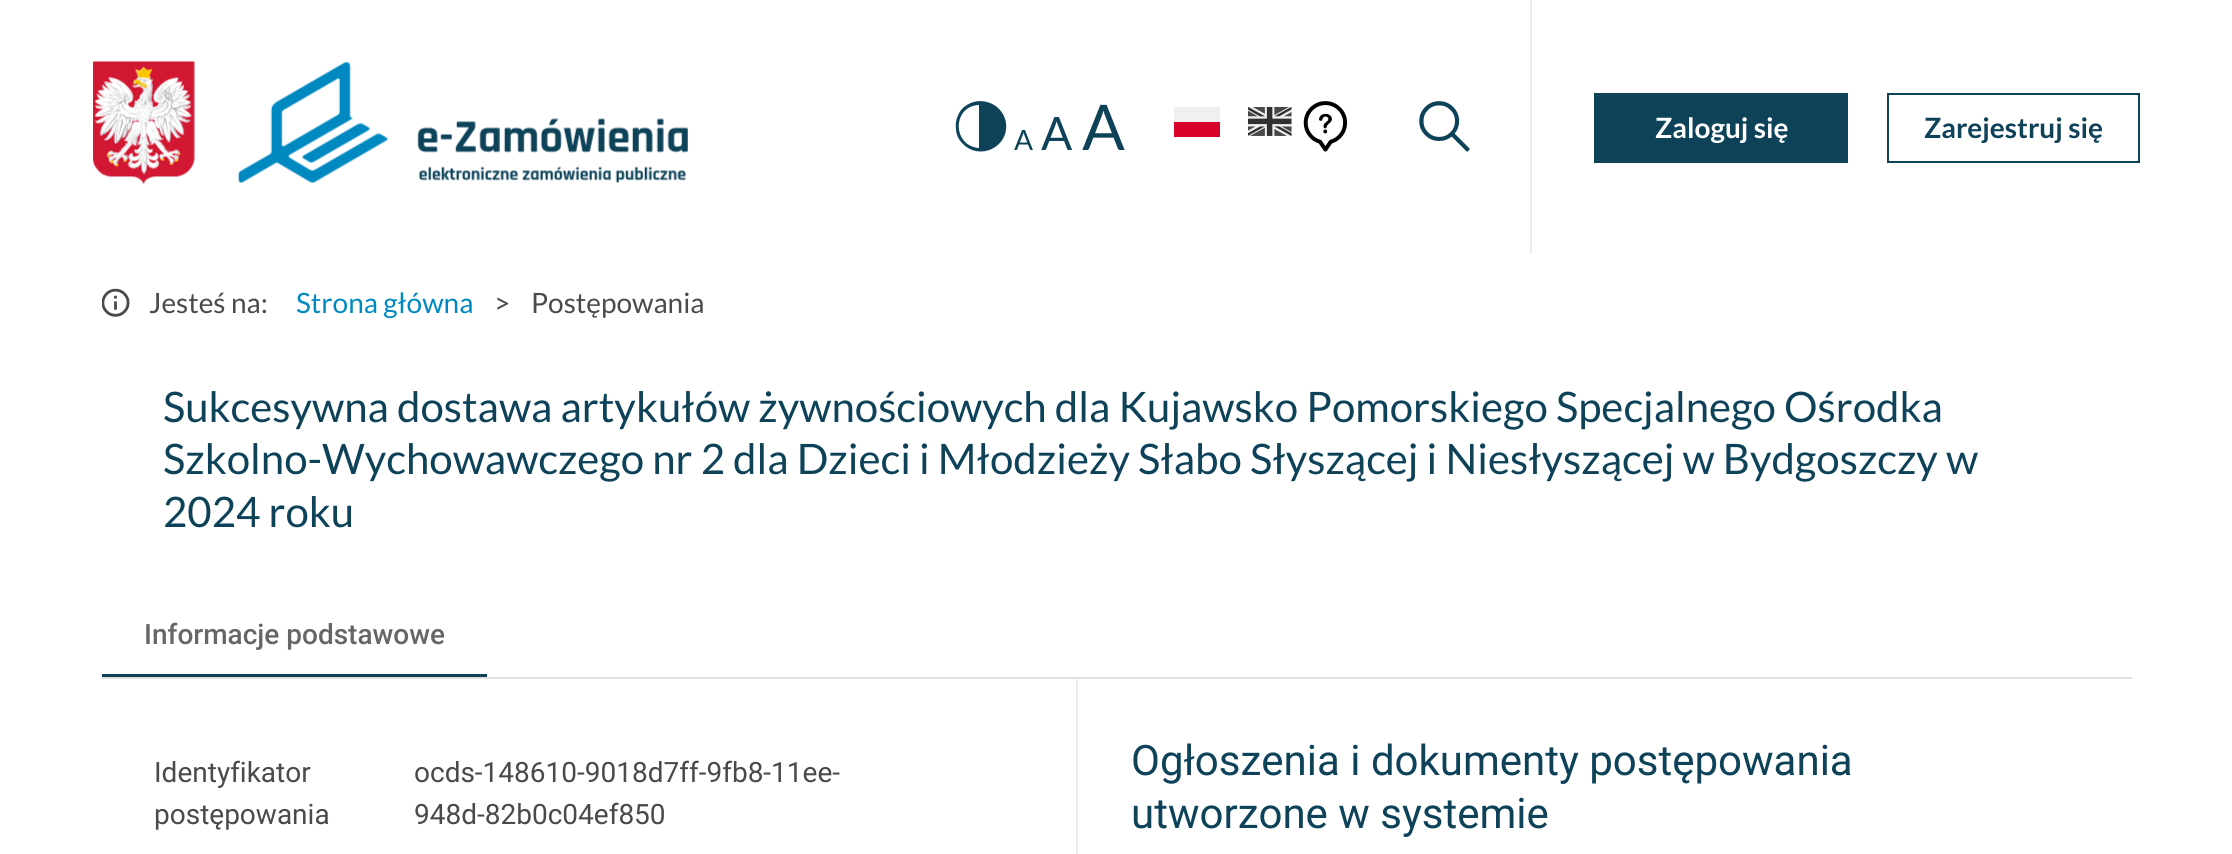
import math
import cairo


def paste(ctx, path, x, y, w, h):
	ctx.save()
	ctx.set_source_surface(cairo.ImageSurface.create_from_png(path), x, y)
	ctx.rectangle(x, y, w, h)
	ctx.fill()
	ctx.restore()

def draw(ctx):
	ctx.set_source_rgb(1, 1, 1)
	ctx.paint()
	paste(ctx, 'media/1.png', 93, 61, 102, 123)
	paste(ctx, 'media/2.png', 238, 61, 450, 122)
	ctx.set_source_rgb(0.051, 0.259, 0.349)
	ctx.new_path()
	ctx.move_to(1006, 123)
	ctx.curve_to(1009, 147, 980, 161, 963, 144)
	ctx.curve_to(959, 140, 956, 135, 956, 129)
	ctx.curve_to(955, 122, 957, 116, 961, 110)
	ctx.curve_to(976, 93, 1003, 102, 1006, 123)
	ctx.close_path()
	ctx.move_to(979, 148)
	ctx.line_to(979, 105)
	ctx.curve_to(952, 106, 952, 146, 979, 148)
	ctx.close_path()
	ctx.fill()
	ctx.select_font_face('Lato')
	ctx.set_font_size(28)
	ctx.move_to(1014, 150)
	ctx.show_text('A')
	ctx.set_font_size(46)
	ctx.move_to(1041, 150)
	ctx.show_text('A')
	ctx.set_font_size(63)
	ctx.move_to(1082, 150)
	ctx.show_text('A')
	ctx.set_source_rgb(0.941, 0.941, 0.941)
	ctx.rectangle(1174, 107, 46, 15)
	ctx.fill()
	paste(ctx, 'media/3.png', 1248, 107, 44, 29)
	ctx.set_source_rgb(0.847, 0, 0.153)
	ctx.rectangle(1174, 122, 46, 15)
	ctx.fill()
	paste(ctx, 'media/4.png', 1303, 101, 45, 51)
	paste(ctx, 'media/5.png', 1419, 101, 51, 51)
	ctx.set_source_rgb(0.925, 0.925, 0.925)
	ctx.rectangle(1530, 0, 2, 254)
	ctx.fill()
	ctx.set_source_rgb(0.051, 0.259, 0.349)
	ctx.rectangle(1594, 93, 254, 70)
	ctx.fill()
	ctx.select_font_face('Lato', cairo.FONT_SLANT_NORMAL, cairo.FONT_WEIGHT_BOLD)
	ctx.set_font_size(28)
	ctx.set_source_rgb(1, 1, 1)
	ctx.move_to(1655, 138)
	ctx.show_text('Zaloguj się')
	ctx.rectangle(1888, 94, 251, 68)
	ctx.set_source_rgb(0.051, 0.259, 0.349)
	ctx.stroke()
	ctx.move_to(1924, 138)
	ctx.show_text('Zarejestruj się')
	paste(ctx, 'media/6.png', 102, 288, 28, 29)
	ctx.select_font_face('Lato')
	ctx.set_source_rgb(0.29, 0.29, 0.29)
	ctx.move_to(149, 313)
	ctx.show_text('Jesteś na:')
	ctx.set_source_rgb(0, 0.537, 0.753)
	ctx.move_to(296, 313)
	ctx.show_text('Strona główna')
	ctx.set_source_rgb(0.29, 0.29, 0.29)
	ctx.move_to(494, 313)
	ctx.show_text('>')
	ctx.move_to(531, 313)
	ctx.show_text('Postępowania')
	ctx.set_font_size(42)
	ctx.set_source_rgb(0.051, 0.259, 0.349)
	for x, y, s in [
		(163, 422, 'Sukcesywna dostawa artykułów żywnościowych dla Kujawsko Pomorskiego Specjalnego Ośrodka'),
		(163, 474, 'Szkolno-Wychowawczego nr 2 dla Dzieci i Młodzieży Słabo Słyszącej i Niesłyszącej w Bydgoszczy w'),
		(163, 527, '2024 roku'),
	]:
		ctx.move_to(x, y)
		ctx.show_text(s)
	ctx.set_source_rgb(0.878, 0.878, 0.878)
	ctx.rectangle(102, 677, 2030, 2)
	ctx.fill()
	ctx.select_font_face('Roboto Medium')
	ctx.set_font_size(28)
	ctx.set_source_rgb(0.4, 0.4, 0.4)
	ctx.move_to(144, 644)
	ctx.show_text('Informacje podstawowe')
	ctx.set_source_rgb(0.051, 0.259, 0.349)
	ctx.rectangle(102, 674, 385, 3)
	ctx.fill()
	ctx.set_source_rgb(0.925, 0.925, 0.925)
	ctx.rectangle(1076, 679, 2, 175)
	ctx.fill()
	ctx.select_font_face('Roboto')
	ctx.set_source_rgb(0.29, 0.29, 0.29)
	for x, y, s in [
		(154, 782, 'Identyfikator'),
		(154, 824, 'postępowania'),
		(414, 782, 'ocds-148610-9018d7ff-9fb8-11ee-'),
		(414, 824, '948d-82b0c04ef850'),
	]:
		ctx.move_to(x, y)
		ctx.show_text(s)
	ctx.set_font_size(42)
	ctx.set_source_rgb(0.051, 0.259, 0.349)
	ctx.move_to(1131, 775)
	ctx.show_text('Ogłoszenia i dokumenty postępowania')
	ctx.move_to(1131, 828)
	ctx.show_text('utworzone w systemie')


surface = cairo.ImageSurface(cairo.FORMAT_RGB24, 2232, 854)
ctx = cairo.Context(surface)
options = cairo.FontOptions()
options.set_hint_metrics(cairo.HINT_METRICS_OFF)
options.set_hint_style(cairo.HINT_STYLE_NONE)
ctx.set_font_options(options)
ctx.set_miter_limit(4)
draw(ctx)
surface.write_to_png('image.png')
